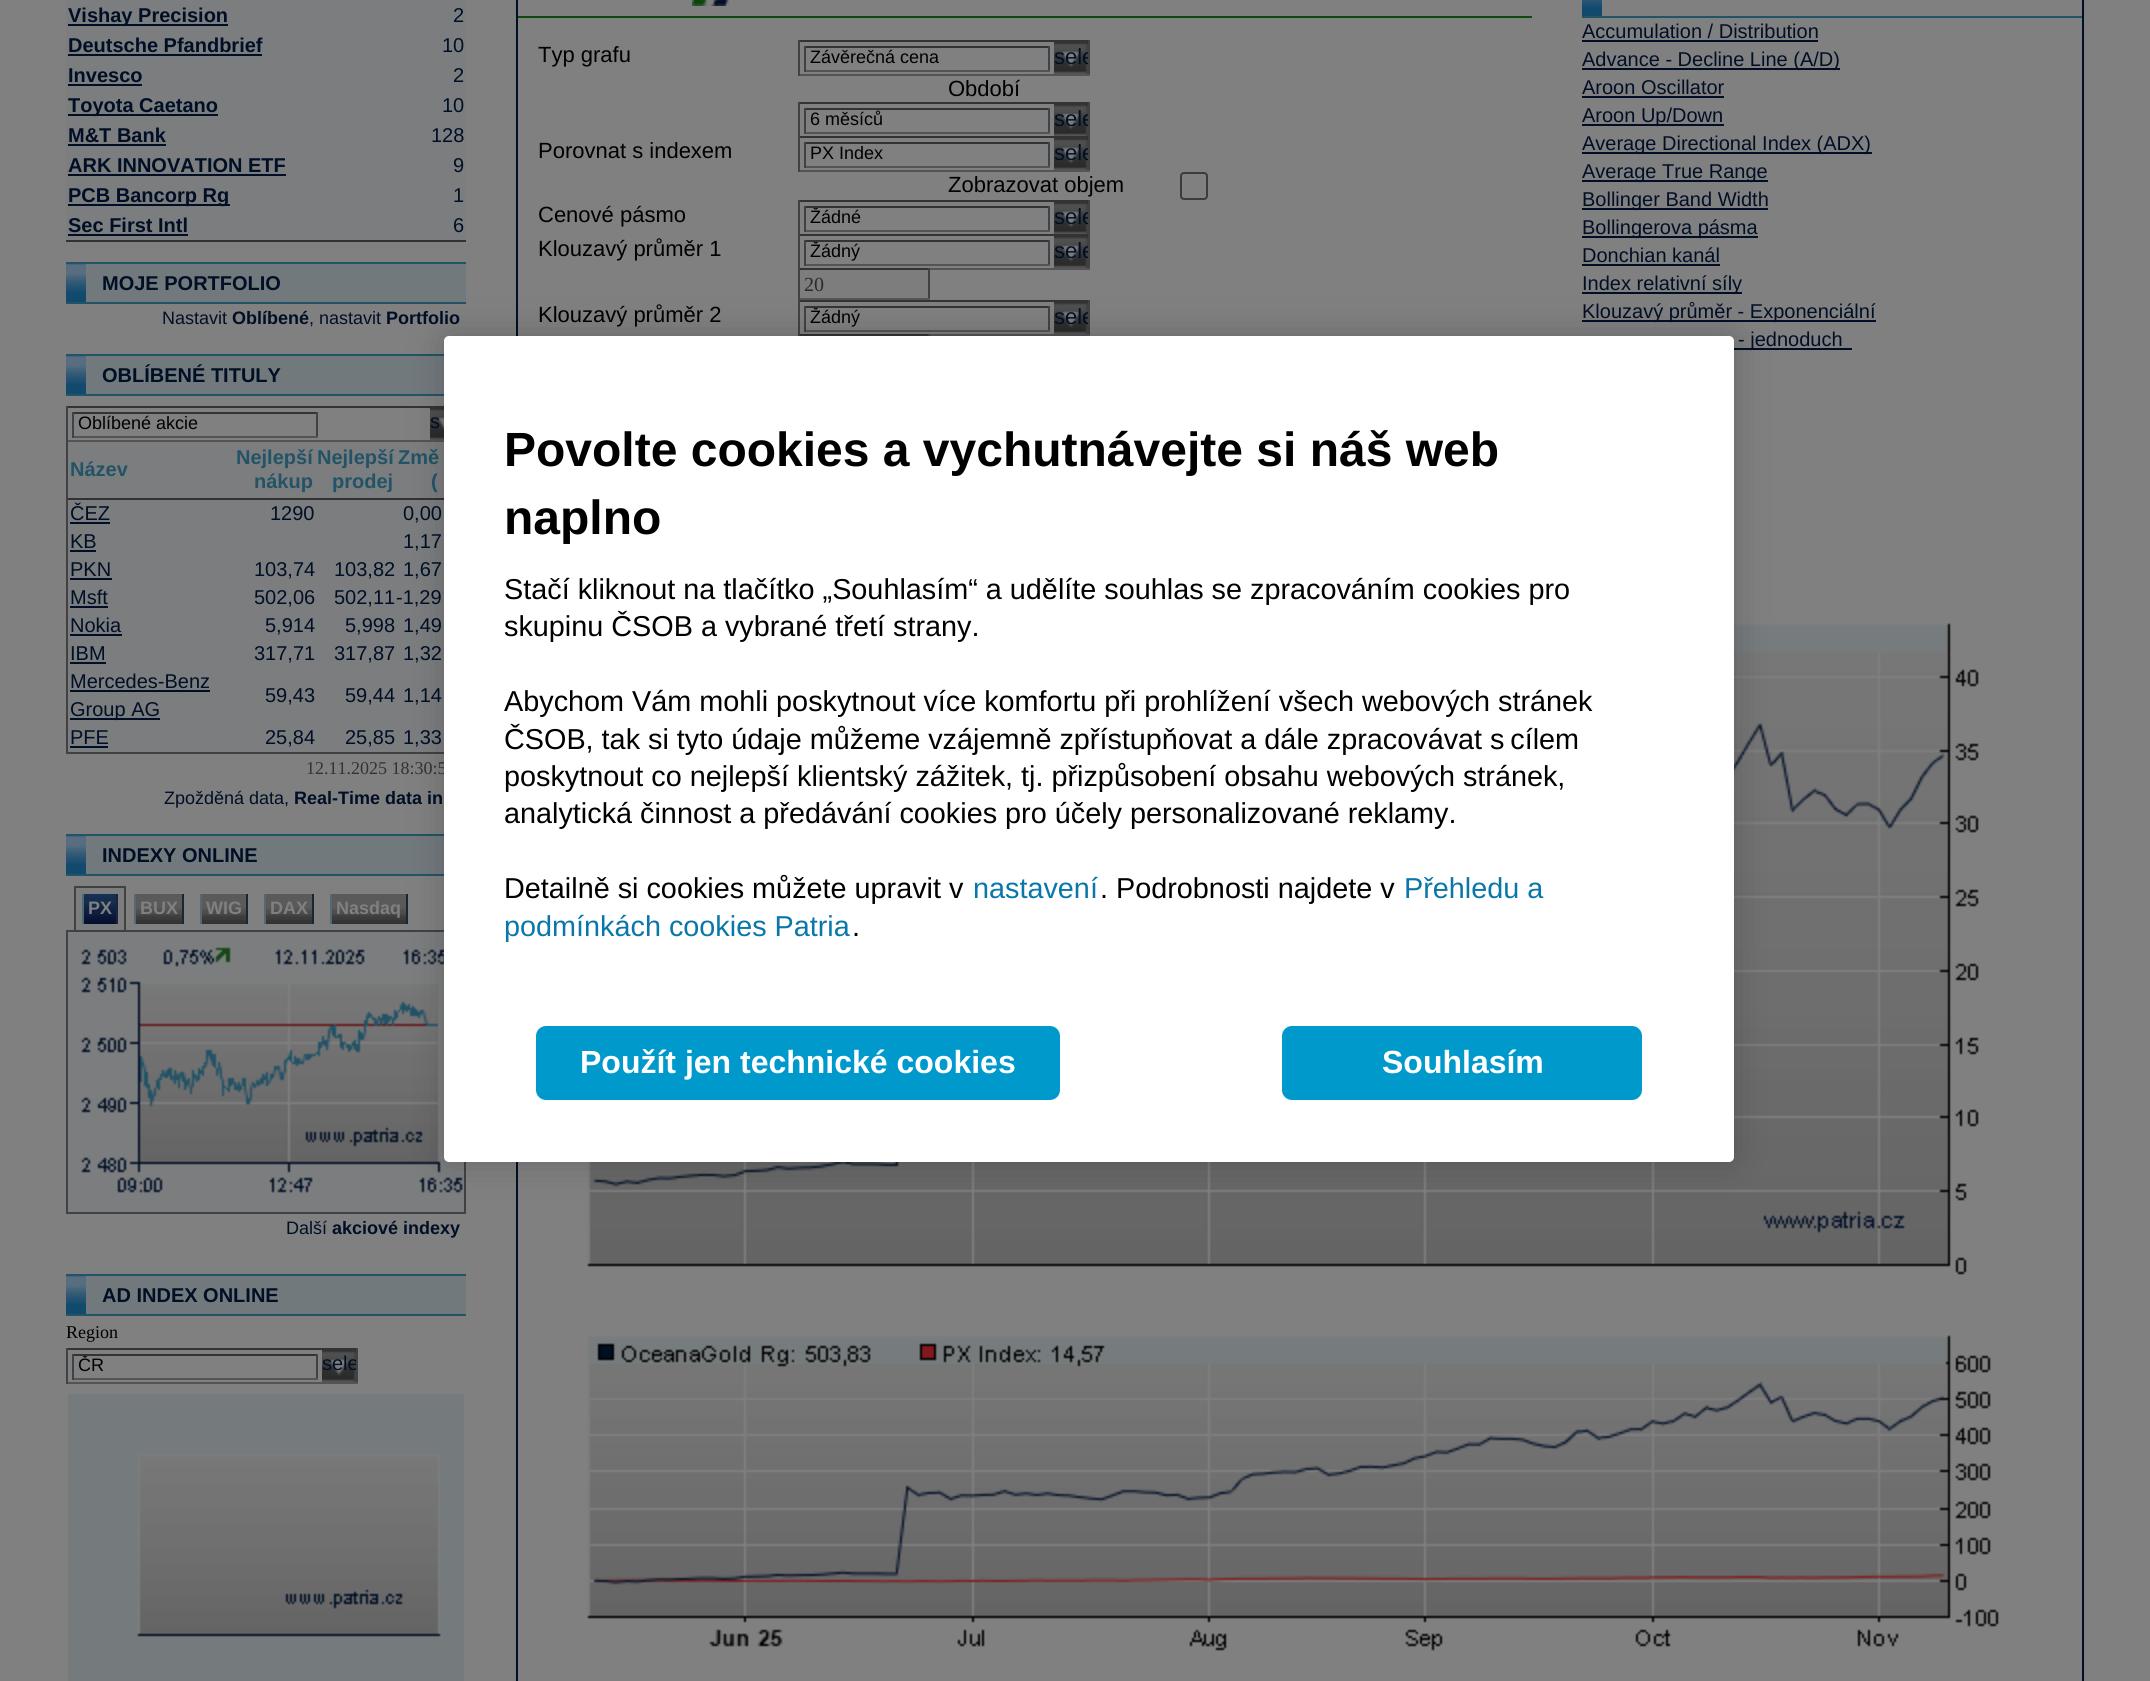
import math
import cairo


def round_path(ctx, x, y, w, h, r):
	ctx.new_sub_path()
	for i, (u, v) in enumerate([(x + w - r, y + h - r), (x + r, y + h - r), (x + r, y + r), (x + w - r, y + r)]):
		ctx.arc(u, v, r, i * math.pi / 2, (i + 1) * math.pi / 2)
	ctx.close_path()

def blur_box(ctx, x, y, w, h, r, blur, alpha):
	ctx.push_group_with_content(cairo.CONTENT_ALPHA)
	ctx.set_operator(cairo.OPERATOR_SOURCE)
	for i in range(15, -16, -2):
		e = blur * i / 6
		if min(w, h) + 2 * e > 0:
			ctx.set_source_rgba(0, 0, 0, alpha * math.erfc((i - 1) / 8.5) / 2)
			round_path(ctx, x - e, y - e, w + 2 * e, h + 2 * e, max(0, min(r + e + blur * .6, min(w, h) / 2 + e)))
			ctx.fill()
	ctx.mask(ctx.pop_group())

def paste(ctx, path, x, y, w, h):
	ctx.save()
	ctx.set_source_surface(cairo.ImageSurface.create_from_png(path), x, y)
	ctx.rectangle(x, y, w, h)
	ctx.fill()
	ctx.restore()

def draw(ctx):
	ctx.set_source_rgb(0.502, 0.502, 0.502)
	ctx.paint()
	ctx.set_source_rgb(0.49, 0.49, 0.49)
	ctx.rectangle(800, 270, 128, 28)
	ctx.fill()
	ctx.set_source_rgb(0.482, 0.49, 0.494)
	ctx.rectangle(66, 0, 400, 240)
	ctx.fill()
	ctx.set_source_rgb(0.196, 0.196, 0.196)
	ctx.rectangle(66, 240, 400, 2)
	ctx.fill()
	ctx.set_source_rgb(0, 0.059, 0.149)
	ctx.rectangle(68, 24, 160, 2)
	ctx.fill()
	ctx.select_font_face('Liberation Sans', cairo.FONT_SLANT_NORMAL, cairo.FONT_WEIGHT_BOLD)
	ctx.set_font_size(20)
	ctx.move_to(68, 22)
	ctx.show_text('Vishay Precision')
	ctx.select_font_face('Liberation Sans')
	ctx.move_to(453, 22)
	ctx.show_text('2')
	ctx.select_font_face('Liberation Sans', cairo.FONT_SLANT_NORMAL, cairo.FONT_WEIGHT_BOLD)
	ctx.move_to(68, 52)
	ctx.show_text('Deutsche Pfandbrief')
	ctx.rectangle(68, 54, 194, 2)
	ctx.fill()
	ctx.select_font_face('Liberation Sans')
	ctx.move_to(442, 52)
	ctx.show_text('10')
	ctx.select_font_face('Liberation Sans', cairo.FONT_SLANT_NORMAL, cairo.FONT_WEIGHT_BOLD)
	ctx.move_to(68, 82)
	ctx.show_text('Invesco')
	ctx.rectangle(68, 84, 74, 2)
	ctx.fill()
	ctx.select_font_face('Liberation Sans')
	ctx.move_to(453, 82)
	ctx.show_text('2')
	ctx.rectangle(68, 114, 150, 2)
	ctx.fill()
	ctx.select_font_face('Liberation Sans', cairo.FONT_SLANT_NORMAL, cairo.FONT_WEIGHT_BOLD)
	ctx.move_to(68, 112)
	ctx.show_text('Toyota Caetano')
	ctx.select_font_face('Liberation Sans')
	ctx.move_to(442, 112)
	ctx.show_text('10')
	ctx.select_font_face('Liberation Sans', cairo.FONT_SLANT_NORMAL, cairo.FONT_WEIGHT_BOLD)
	ctx.move_to(68, 142)
	ctx.show_text('M&T Bank')
	ctx.rectangle(68, 144, 98, 2)
	ctx.fill()
	ctx.select_font_face('Liberation Sans')
	ctx.move_to(431, 142)
	ctx.show_text('128')
	ctx.select_font_face('Liberation Sans', cairo.FONT_SLANT_NORMAL, cairo.FONT_WEIGHT_BOLD)
	ctx.move_to(68, 172)
	ctx.show_text('ARK INNOVATION ETF')
	ctx.rectangle(68, 174, 218, 2)
	ctx.fill()
	ctx.select_font_face('Liberation Sans')
	ctx.move_to(453, 172)
	ctx.show_text('9')
	ctx.rectangle(68, 204, 162, 2)
	ctx.fill()
	ctx.select_font_face('Liberation Sans', cairo.FONT_SLANT_NORMAL, cairo.FONT_WEIGHT_BOLD)
	ctx.move_to(68, 202)
	ctx.show_text('PCB Bancorp Rg')
	ctx.select_font_face('Liberation Sans')
	ctx.move_to(453, 202)
	ctx.show_text('1')
	ctx.select_font_face('Liberation Sans', cairo.FONT_SLANT_NORMAL, cairo.FONT_WEIGHT_BOLD)
	ctx.move_to(68, 232)
	ctx.show_text('Sec First Intl')
	ctx.rectangle(68, 234, 120, 2)
	ctx.fill()
	ctx.select_font_face('Liberation Sans')
	ctx.move_to(453, 232)
	ctx.show_text('6')
	ctx.set_source_rgb(0.447, 0.475, 0.486)
	ctx.rectangle(86, 264, 380, 38)
	ctx.fill()
	paste(ctx, 'media/1.png', 66, 264, 20, 38)
	ctx.set_source_rgb(0.137, 0.325, 0.404)
	ctx.rectangle(66, 262, 400, 2)
	ctx.fill()
	ctx.select_font_face('Liberation Sans', cairo.FONT_SLANT_NORMAL, cairo.FONT_WEIGHT_BOLD)
	ctx.set_source_rgb(0, 0.059, 0.149)
	ctx.move_to(102, 290)
	ctx.show_text('MOJE PORTFOLIO')
	ctx.set_source_rgb(0.137, 0.325, 0.404)
	ctx.rectangle(66, 302, 400, 2)
	ctx.fill()
	ctx.select_font_face('Liberation Sans')
	ctx.set_font_size(18)
	ctx.set_source_rgb(0, 0.059, 0.149)
	ctx.move_to(162, 324)
	ctx.show_text('Nastavit')
	ctx.select_font_face('Liberation Sans', cairo.FONT_SLANT_NORMAL, cairo.FONT_WEIGHT_BOLD)
	ctx.move_to(232, 324)
	ctx.show_text('Oblíbené')
	ctx.select_font_face('Liberation Sans')
	ctx.move_to(309, 324)
	ctx.show_text(', nastavit')
	ctx.select_font_face('Liberation Sans', cairo.FONT_SLANT_NORMAL, cairo.FONT_WEIGHT_BOLD)
	ctx.move_to(386, 324)
	ctx.show_text('Portfolio')
	ctx.set_source_rgb(0.447, 0.475, 0.486)
	ctx.rectangle(86, 356, 358, 38)
	ctx.fill()
	paste(ctx, 'media/1.png', 66, 356, 20, 38)
	ctx.set_source_rgb(0.137, 0.325, 0.404)
	ctx.rectangle(66, 354, 378, 2)
	ctx.fill()
	ctx.set_font_size(20)
	ctx.set_source_rgb(0, 0.059, 0.149)
	ctx.move_to(102, 382)
	ctx.show_text('OBLÍBENÉ TITULY')
	ctx.set_source_rgb(0.137, 0.325, 0.404)
	ctx.rectangle(66, 394, 378, 2)
	ctx.fill()
	ctx.set_source_rgb(0.2, 0.2, 0.2)
	ctx.rectangle(66, 406, 378, 2)
	ctx.fill()
	ctx.set_source_rgb(0.329, 0.329, 0.333)
	ctx.rectangle(66, 440, 378, 2)
	ctx.fill()
	ctx.set_source_rgb(0.239, 0.263, 0.275)
	ctx.rectangle(66, 406, 2, 36)
	ctx.fill()
	ctx.set_source_rgb(0.2, 0.2, 0.2)
	ctx.rectangle(72, 412, 246, 2)
	ctx.fill()
	ctx.set_source_rgb(0.239, 0.263, 0.275)
	ctx.rectangle(316, 412, 2, 26)
	ctx.fill()
	ctx.set_source_rgb(0.329, 0.329, 0.333)
	ctx.rectangle(72, 436, 246, 2)
	ctx.fill()
	ctx.set_source_rgb(0.239, 0.263, 0.275)
	ctx.rectangle(72, 412, 2, 26)
	ctx.fill()
	ctx.select_font_face('Liberation Sans')
	ctx.set_font_size(18)
	ctx.set_source_rgb(0, 0, 0)
	ctx.move_to(78, 429)
	ctx.show_text('Oblíbené akcie')
	paste(ctx, 'media/2.png', 430, 408, 14, 32)
	ctx.set_font_size(20)
	ctx.set_source_rgb(0, 0.059, 0.149)
	ctx.move_to(430, 428)
	ctx.show_text('s')
	ctx.set_source_rgb(0.482, 0.49, 0.494)
	ctx.rectangle(68, 442, 376, 310)
	ctx.fill()
	ctx.set_source_rgb(0.255, 0.255, 0.255)
	ctx.rectangle(66, 752, 378, 2)
	ctx.rectangle(66, 442, 2, 312)
	ctx.fill()
	ctx.set_source_rgb(0.196, 0.196, 0.196)
	ctx.rectangle(68, 498, 376, 2)
	ctx.fill()
	ctx.select_font_face('Liberation Sans', cairo.FONT_SLANT_NORMAL, cairo.FONT_WEIGHT_BOLD)
	ctx.set_source_rgb(0.137, 0.325, 0.404)
	for x, y, s in [
		(70, 476, 'Název'),
		(236, 464, 'Nejlepší'),
		(254, 488, 'nákup'),
		(317, 464, 'Nejlepší'),
		(332, 488, 'prodej'),
		(398, 464, 'Změ'),
		(431, 488, '('),
	]:
		ctx.move_to(x, y)
		ctx.show_text(s)
	ctx.select_font_face('Liberation Sans')
	ctx.set_source_rgb(0, 0.059, 0.149)
	ctx.move_to(70, 520)
	ctx.show_text('ČEZ')
	ctx.rectangle(70, 522, 40, 2)
	ctx.fill()
	for x, y, s in [
		(270, 520, '1290'),
		(403, 520, '0,00'),
		(70, 548, 'KB'),
	]:
		ctx.move_to(x, y)
		ctx.show_text(s)
	ctx.rectangle(70, 550, 26, 2)
	ctx.fill()
	ctx.move_to(403, 548)
	ctx.show_text('1,17')
	ctx.move_to(70, 576)
	ctx.show_text('PKN')
	ctx.rectangle(70, 578, 42, 2)
	ctx.fill()
	for x, y, s in [
		(254, 576, '103,74'),
		(334, 576, '103,82'),
		(403, 576, '1,67'),
		(70, 604, 'Msft'),
	]:
		ctx.move_to(x, y)
		ctx.show_text(s)
	ctx.rectangle(70, 606, 38, 2)
	ctx.fill()
	for x, y, s in [
		(254, 604, '502,06'),
		(334, 604, '502,11'),
		(396, 604, '-1,29'),
		(70, 632, 'Nokia'),
	]:
		ctx.move_to(x, y)
		ctx.show_text(s)
	ctx.rectangle(70, 634, 52, 2)
	ctx.fill()
	for x, y, s in [
		(265, 632, '5,914'),
		(345, 632, '5,998'),
		(403, 632, '1,49'),
		(70, 660, 'IBM'),
	]:
		ctx.move_to(x, y)
		ctx.show_text(s)
	ctx.rectangle(70, 662, 36, 2)
	ctx.fill()
	for x, y, s in [
		(254, 660, '317,71'),
		(334, 660, '317,87'),
		(403, 660, '1,32'),
		(70, 688, 'Mercedes-Benz'),
	]:
		ctx.move_to(x, y)
		ctx.show_text(s)
	ctx.rectangle(70, 690, 140, 2)
	ctx.fill()
	ctx.rectangle(70, 718, 90, 2)
	ctx.fill()
	for x, y, s in [
		(70, 716, 'Group AG'),
		(265, 702, '59,43'),
		(345, 702, '59,44'),
		(403, 702, '1,14'),
		(70, 744, 'PFE'),
	]:
		ctx.move_to(x, y)
		ctx.show_text(s)
	ctx.rectangle(70, 746, 38, 2)
	ctx.fill()
	for x, y, s in [
		(265, 744, '25,84'),
		(345, 744, '25,85'),
		(403, 744, '1,33'),
	]:
		ctx.move_to(x, y)
		ctx.show_text(s)
	ctx.select_font_face('Liberation Serif')
	ctx.set_font_size(18)
	ctx.set_source_rgb(0.196, 0.196, 0.196)
	ctx.move_to(306, 774)
	ctx.show_text('12.11.2025 18:30:5')
	ctx.select_font_face('Liberation Sans')
	ctx.set_source_rgb(0, 0.059, 0.149)
	ctx.move_to(164, 804)
	ctx.show_text('Zpožděná data,')
	ctx.select_font_face('Liberation Sans', cairo.FONT_SLANT_NORMAL, cairo.FONT_WEIGHT_BOLD)
	ctx.move_to(294, 804)
	ctx.show_text('Real-Time data in')
	ctx.set_source_rgb(0.447, 0.475, 0.486)
	ctx.rectangle(86, 836, 358, 38)
	ctx.fill()
	paste(ctx, 'media/1.png', 66, 836, 20, 38)
	ctx.set_source_rgb(0.137, 0.325, 0.404)
	ctx.rectangle(66, 834, 378, 2)
	ctx.fill()
	ctx.set_font_size(20)
	ctx.set_source_rgb(0, 0.059, 0.149)
	ctx.move_to(102, 862)
	ctx.show_text('INDEXY ONLINE')
	ctx.set_source_rgb(0.137, 0.325, 0.404)
	ctx.rectangle(66, 874, 378, 2)
	ctx.fill()
	ctx.set_source_rgb(0.255, 0.255, 0.255)
	ctx.rectangle(66, 930, 378, 2)
	ctx.fill()
	ctx.set_source_rgb(0.482, 0.49, 0.494)
	ctx.rectangle(76, 888, 48, 42)
	ctx.fill()
	paste(ctx, 'media/3.png', 84, 894, 32, 30)
	paste(ctx, 'media/4.png', 136, 894, 46, 30)
	paste(ctx, 'media/5.png', 202, 894, 44, 30)
	paste(ctx, 'media/4.png', 266, 894, 46, 30)
	paste(ctx, 'media/6.png', 332, 894, 74, 30)
	ctx.set_font_size(18)
	ctx.set_source_rgb(0.502, 0.502, 0.502)
	ctx.move_to(88, 914)
	ctx.show_text('PX')
	ctx.set_source_rgb(0.255, 0.255, 0.255)
	ctx.rectangle(74, 886, 52, 2)
	ctx.rectangle(124, 886, 2, 44)
	ctx.rectangle(74, 886, 2, 44)
	ctx.fill()
	ctx.set_source_rgb(0.102, 0.149, 0.22)
	ctx.rectangle(116, 894, 2, 30)
	ctx.fill()
	ctx.set_source_rgb(0.318, 0.412, 0.451)
	ctx.rectangle(82, 894, 2, 30)
	ctx.fill()
	ctx.set_source_rgb(0.502, 0.502, 0.502)
	ctx.move_to(140, 914)
	ctx.show_text('BUX')
	ctx.set_source_rgb(0.102, 0.149, 0.22)
	ctx.rectangle(182, 894, 2, 30)
	ctx.fill()
	ctx.set_source_rgb(0.318, 0.412, 0.451)
	ctx.rectangle(134, 894, 2, 30)
	ctx.fill()
	ctx.set_source_rgb(0.502, 0.502, 0.502)
	ctx.move_to(206, 914)
	ctx.show_text('WIG')
	ctx.set_source_rgb(0.102, 0.149, 0.22)
	ctx.rectangle(246, 894, 2, 30)
	ctx.fill()
	ctx.set_source_rgb(0.318, 0.412, 0.451)
	ctx.rectangle(200, 894, 2, 30)
	ctx.fill()
	ctx.set_source_rgb(0.502, 0.502, 0.502)
	ctx.move_to(270, 914)
	ctx.show_text('DAX')
	ctx.set_source_rgb(0.102, 0.149, 0.22)
	ctx.rectangle(312, 894, 2, 30)
	ctx.fill()
	ctx.set_source_rgb(0.318, 0.412, 0.451)
	ctx.rectangle(264, 894, 2, 30)
	ctx.fill()
	ctx.set_source_rgb(0.502, 0.502, 0.502)
	ctx.move_to(336, 914)
	ctx.show_text('Nasdaq')
	ctx.set_source_rgb(0.102, 0.149, 0.22)
	ctx.rectangle(406, 894, 2, 30)
	ctx.fill()
	ctx.set_source_rgb(0.318, 0.412, 0.451)
	ctx.rectangle(330, 894, 2, 30)
	ctx.fill()
	ctx.set_source_rgb(0.482, 0.49, 0.494)
	ctx.rectangle(68, 932, 396, 280)
	ctx.fill()
	ctx.set_source_rgb(0.255, 0.255, 0.255)
	ctx.rectangle(464, 1162, 2, 52)
	ctx.rectangle(66, 1212, 400, 2)
	ctx.rectangle(66, 932, 2, 282)
	ctx.fill()
	paste(ctx, 'media/7.png', 81, 947, 382, 246)
	ctx.select_font_face('Liberation Sans')
	ctx.set_source_rgb(0, 0.059, 0.149)
	ctx.move_to(286, 1234)
	ctx.show_text('Další')
	ctx.select_font_face('Liberation Sans', cairo.FONT_SLANT_NORMAL, cairo.FONT_WEIGHT_BOLD)
	ctx.move_to(332, 1234)
	ctx.show_text('akciové indexy')
	ctx.set_source_rgb(0.447, 0.475, 0.486)
	ctx.rectangle(86, 1276, 380, 38)
	ctx.fill()
	paste(ctx, 'media/1.png', 66, 1276, 20, 38)
	ctx.set_source_rgb(0.137, 0.325, 0.404)
	ctx.rectangle(66, 1274, 400, 2)
	ctx.fill()
	ctx.set_font_size(20)
	ctx.set_source_rgb(0, 0.059, 0.149)
	ctx.move_to(102, 1302)
	ctx.show_text('AD INDEX ONLINE')
	ctx.set_source_rgb(0.137, 0.325, 0.404)
	ctx.rectangle(66, 1314, 400, 2)
	ctx.fill()
	ctx.select_font_face('Liberation Serif')
	ctx.set_font_size(18)
	ctx.set_source_rgb(0, 0, 0)
	ctx.move_to(66, 1338)
	ctx.show_text('Region')
	ctx.set_source_rgb(0.2, 0.2, 0.2)
	ctx.rectangle(66, 1348, 292, 2)
	ctx.fill()
	ctx.set_source_rgb(0.239, 0.263, 0.275)
	ctx.rectangle(356, 1348, 2, 36)
	ctx.fill()
	ctx.set_source_rgb(0.329, 0.329, 0.333)
	ctx.rectangle(66, 1382, 292, 2)
	ctx.fill()
	ctx.set_source_rgb(0.239, 0.263, 0.275)
	ctx.rectangle(66, 1348, 2, 36)
	ctx.fill()
	ctx.set_source_rgb(0.2, 0.2, 0.2)
	ctx.rectangle(72, 1354, 246, 2)
	ctx.fill()
	ctx.set_source_rgb(0.239, 0.263, 0.275)
	ctx.rectangle(316, 1354, 2, 26)
	ctx.fill()
	ctx.set_source_rgb(0.329, 0.329, 0.333)
	ctx.rectangle(72, 1378, 246, 2)
	ctx.fill()
	ctx.set_source_rgb(0.239, 0.263, 0.275)
	ctx.rectangle(72, 1354, 2, 26)
	ctx.fill()
	ctx.save()
	ctx.rectangle(78, 1356, 234, 22)
	ctx.clip()
	ctx.select_font_face('Liberation Sans')
	ctx.set_source_rgb(0, 0, 0)
	ctx.move_to(78, 1371)
	ctx.show_text('ČR')
	ctx.restore()
	paste(ctx, 'media/8.png', 322, 1350, 34, 32)
	ctx.save()
	ctx.rectangle(322, 1350, 34, 32)
	ctx.clip()
	ctx.select_font_face('Liberation Sans')
	ctx.set_font_size(20)
	ctx.set_source_rgb(0, 0.059, 0.149)
	ctx.move_to(322, 1370)
	ctx.show_text('sele')
	ctx.restore()
	paste(ctx, 'media/9.png', 68, 1394, 396, 287)
	ctx.set_source_rgb(0, 0.059, 0.149)
	ctx.rectangle(2082, 0, 2, 1681)
	ctx.rectangle(516, 0, 2, 1681)
	ctx.fill()
	ctx.set_source_rgb(0.059, 0.286, 0.063)
	ctx.rectangle(518, 16, 1014, 2)
	ctx.fill()
	paste(ctx, 'media/10.png', 692, 0, 37, 6)
	ctx.select_font_face('Liberation Sans')
	ctx.set_font_size(22)
	ctx.set_source_rgb(0, 0, 0)
	ctx.move_to(538, 62)
	ctx.show_text('Typ grafu')
	ctx.set_source_rgb(0.2, 0.2, 0.2)
	ctx.rectangle(798, 40, 292, 2)
	ctx.fill()
	ctx.set_source_rgb(0.239, 0.263, 0.275)
	ctx.rectangle(1088, 40, 2, 36)
	ctx.fill()
	ctx.set_source_rgb(0.329, 0.329, 0.333)
	ctx.rectangle(798, 74, 292, 2)
	ctx.fill()
	ctx.set_source_rgb(0.239, 0.263, 0.275)
	ctx.rectangle(798, 40, 2, 36)
	ctx.fill()
	ctx.set_source_rgb(0.2, 0.2, 0.2)
	ctx.rectangle(804, 46, 246, 2)
	ctx.fill()
	ctx.set_source_rgb(0.239, 0.263, 0.275)
	ctx.rectangle(1048, 46, 2, 26)
	ctx.fill()
	ctx.set_source_rgb(0.329, 0.329, 0.333)
	ctx.rectangle(804, 70, 246, 2)
	ctx.fill()
	ctx.set_source_rgb(0.239, 0.263, 0.275)
	ctx.rectangle(804, 46, 2, 26)
	ctx.fill()
	ctx.set_font_size(18)
	ctx.set_source_rgb(0, 0, 0)
	ctx.move_to(810, 63)
	ctx.show_text('Závěrečná cena')
	paste(ctx, 'media/8.png', 1054, 42, 34, 32)
	ctx.save()
	ctx.rectangle(1054, 42, 34, 32)
	ctx.clip()
	ctx.set_font_size(22)
	ctx.set_source_rgb(0, 0.059, 0.149)
	ctx.move_to(1054, 64)
	ctx.show_text('sele')
	ctx.restore()
	ctx.set_font_size(22)
	ctx.move_to(948, 96)
	ctx.show_text('Období')
	ctx.set_source_rgb(0.2, 0.2, 0.2)
	ctx.rectangle(798, 102, 292, 2)
	ctx.fill()
	ctx.set_source_rgb(0.239, 0.263, 0.275)
	ctx.rectangle(798, 102, 2, 36)
	ctx.fill()
	ctx.set_source_rgb(0.2, 0.2, 0.2)
	ctx.rectangle(804, 108, 246, 2)
	ctx.fill()
	ctx.set_source_rgb(0.239, 0.263, 0.275)
	ctx.rectangle(1048, 108, 2, 26)
	ctx.fill()
	ctx.set_source_rgb(0.329, 0.329, 0.333)
	ctx.rectangle(804, 132, 246, 2)
	ctx.fill()
	ctx.set_source_rgb(0.239, 0.263, 0.275)
	ctx.rectangle(804, 108, 2, 26)
	ctx.fill()
	ctx.set_font_size(18)
	ctx.set_source_rgb(0, 0, 0)
	ctx.move_to(810, 125)
	ctx.show_text('6 měsíců')
	ctx.set_source_rgb(0.239, 0.263, 0.275)
	ctx.rectangle(1088, 102, 2, 36)
	ctx.fill()
	paste(ctx, 'media/8.png', 1054, 104, 34, 32)
	ctx.save()
	ctx.rectangle(1054, 104, 34, 32)
	ctx.clip()
	ctx.set_font_size(22)
	ctx.set_source_rgb(0, 0.059, 0.149)
	ctx.move_to(1054, 126)
	ctx.show_text('sele')
	ctx.restore()
	ctx.set_font_size(22)
	ctx.set_source_rgb(0, 0, 0)
	ctx.move_to(538, 158)
	ctx.show_text('Porovnat s indexem')
	ctx.set_source_rgb(0.2, 0.2, 0.2)
	ctx.rectangle(798, 136, 292, 2)
	ctx.fill()
	ctx.set_source_rgb(0.239, 0.263, 0.275)
	ctx.rectangle(1088, 136, 2, 36)
	ctx.fill()
	ctx.set_source_rgb(0.329, 0.329, 0.333)
	ctx.rectangle(798, 170, 292, 2)
	ctx.fill()
	ctx.set_source_rgb(0.239, 0.263, 0.275)
	ctx.rectangle(798, 136, 2, 36)
	ctx.fill()
	ctx.set_source_rgb(0.2, 0.2, 0.2)
	ctx.rectangle(804, 142, 246, 2)
	ctx.fill()
	ctx.set_source_rgb(0.239, 0.263, 0.275)
	ctx.rectangle(1048, 142, 2, 26)
	ctx.fill()
	ctx.set_source_rgb(0.329, 0.329, 0.333)
	ctx.rectangle(804, 166, 246, 2)
	ctx.fill()
	ctx.set_source_rgb(0.239, 0.263, 0.275)
	ctx.rectangle(804, 142, 2, 26)
	ctx.fill()
	ctx.set_font_size(18)
	ctx.set_source_rgb(0, 0, 0)
	ctx.move_to(810, 159)
	ctx.show_text('PX Index')
	paste(ctx, 'media/8.png', 1054, 138, 34, 32)
	ctx.save()
	ctx.rectangle(1054, 138, 34, 32)
	ctx.clip()
	ctx.set_font_size(22)
	ctx.set_source_rgb(0, 0.059, 0.149)
	ctx.move_to(1054, 160)
	ctx.show_text('sele')
	ctx.restore()
	ctx.set_font_size(22)
	ctx.move_to(948, 192)
	ctx.show_text('Zobrazovat objem')
	round_path(ctx, 1181, 173, 26, 26, 3)
	ctx.set_source_rgb(0.231, 0.231, 0.231)
	ctx.stroke()
	ctx.set_source_rgb(0, 0, 0)
	ctx.move_to(538, 222)
	ctx.show_text('Cenové pásmo')
	ctx.set_source_rgb(0.2, 0.2, 0.2)
	ctx.rectangle(798, 200, 292, 2)
	ctx.fill()
	ctx.set_source_rgb(0.239, 0.263, 0.275)
	ctx.rectangle(798, 200, 2, 36)
	ctx.fill()
	ctx.set_source_rgb(0.2, 0.2, 0.2)
	ctx.rectangle(804, 206, 246, 2)
	ctx.fill()
	ctx.set_source_rgb(0.239, 0.263, 0.275)
	ctx.rectangle(1048, 206, 2, 26)
	ctx.fill()
	ctx.set_source_rgb(0.329, 0.329, 0.333)
	ctx.rectangle(804, 230, 246, 2)
	ctx.fill()
	ctx.set_source_rgb(0.239, 0.263, 0.275)
	ctx.rectangle(804, 206, 2, 26)
	ctx.fill()
	ctx.save()
	ctx.rectangle(810, 208, 234, 22)
	ctx.clip()
	ctx.set_font_size(18)
	ctx.set_source_rgb(0, 0, 0)
	ctx.move_to(810, 223)
	ctx.show_text('Žádné')
	ctx.restore()
	ctx.rectangle(1088, 200, 2, 36)
	ctx.fill()
	paste(ctx, 'media/8.png', 1054, 202, 34, 32)
	ctx.save()
	ctx.rectangle(1054, 202, 34, 32)
	ctx.clip()
	ctx.set_source_rgb(0, 0.059, 0.149)
	ctx.move_to(1054, 224)
	ctx.show_text('sele')
	ctx.restore()
	ctx.set_source_rgb(0, 0, 0)
	ctx.move_to(538, 256)
	ctx.show_text('Klouzavý průměr 1')
	ctx.set_source_rgb(0.2, 0.2, 0.2)
	ctx.rectangle(798, 234, 292, 2)
	ctx.fill()
	ctx.set_source_rgb(0.239, 0.263, 0.275)
	ctx.rectangle(798, 234, 2, 36)
	ctx.fill()
	ctx.set_source_rgb(0.2, 0.2, 0.2)
	ctx.rectangle(804, 240, 246, 2)
	ctx.fill()
	ctx.set_source_rgb(0.239, 0.263, 0.275)
	ctx.rectangle(1048, 240, 2, 26)
	ctx.fill()
	ctx.set_source_rgb(0.329, 0.329, 0.333)
	ctx.rectangle(804, 264, 246, 2)
	ctx.fill()
	ctx.set_source_rgb(0.239, 0.263, 0.275)
	ctx.rectangle(804, 240, 2, 26)
	ctx.fill()
	ctx.save()
	ctx.rectangle(810, 242, 234, 22)
	ctx.clip()
	ctx.set_font_size(18)
	ctx.set_source_rgb(0, 0, 0)
	ctx.move_to(810, 257)
	ctx.show_text('Žádný')
	ctx.restore()
	ctx.rectangle(1088, 234, 2, 36)
	ctx.fill()
	ctx.set_source_rgb(0.329, 0.329, 0.333)
	ctx.rectangle(930, 268, 160, 2)
	ctx.fill()
	paste(ctx, 'media/8.png', 1054, 236, 34, 32)
	ctx.save()
	ctx.rectangle(1054, 236, 34, 32)
	ctx.clip()
	ctx.set_source_rgb(0, 0.059, 0.149)
	ctx.move_to(1054, 258)
	ctx.show_text('sele')
	ctx.restore()
	ctx.set_source_rgb(0.2, 0.2, 0.2)
	ctx.rectangle(798, 268, 132, 2)
	ctx.fill()
	ctx.set_source_rgb(0.239, 0.263, 0.275)
	ctx.rectangle(928, 268, 2, 32)
	ctx.fill()
	ctx.set_source_rgb(0.329, 0.329, 0.333)
	ctx.rectangle(798, 298, 132, 2)
	ctx.fill()
	ctx.set_source_rgb(0.239, 0.263, 0.275)
	ctx.rectangle(798, 268, 2, 32)
	ctx.fill()
	ctx.select_font_face('Liberation Serif')
	ctx.set_font_size(20)
	ctx.set_source_rgb(0.165, 0.165, 0.165)
	ctx.move_to(804, 291)
	ctx.show_text('20')
	ctx.select_font_face('Liberation Sans')
	ctx.set_font_size(22)
	ctx.set_source_rgb(0, 0, 0)
	ctx.move_to(538, 322)
	ctx.show_text('Klouzavý průměr 2')
	ctx.set_source_rgb(0.2, 0.2, 0.2)
	ctx.rectangle(798, 300, 292, 2)
	ctx.fill()
	ctx.set_source_rgb(0.239, 0.263, 0.275)
	ctx.rectangle(798, 300, 2, 36)
	ctx.fill()
	ctx.set_source_rgb(0.2, 0.2, 0.2)
	ctx.rectangle(804, 306, 246, 2)
	ctx.fill()
	ctx.set_source_rgb(0.239, 0.263, 0.275)
	ctx.rectangle(1048, 306, 2, 26)
	ctx.fill()
	ctx.set_source_rgb(0.329, 0.329, 0.333)
	ctx.rectangle(804, 330, 246, 2)
	ctx.fill()
	ctx.set_source_rgb(0.239, 0.263, 0.275)
	ctx.rectangle(804, 306, 2, 26)
	ctx.fill()
	ctx.save()
	ctx.rectangle(810, 308, 234, 22)
	ctx.clip()
	ctx.set_font_size(18)
	ctx.set_source_rgb(0, 0, 0)
	ctx.move_to(810, 323)
	ctx.show_text('Žádný')
	ctx.restore()
	ctx.rectangle(1088, 300, 2, 36)
	ctx.fill()
	ctx.set_source_rgb(0.329, 0.329, 0.333)
	ctx.rectangle(930, 334, 160, 2)
	ctx.fill()
	paste(ctx, 'media/8.png', 1054, 302, 34, 32)
	ctx.save()
	ctx.rectangle(1054, 302, 34, 32)
	ctx.clip()
	ctx.set_source_rgb(0, 0.059, 0.149)
	ctx.move_to(1054, 324)
	ctx.show_text('sele')
	ctx.restore()
	ctx.set_source_rgb(0.2, 0.2, 0.2)
	ctx.rectangle(798, 334, 132, 2)
	ctx.fill()
	ctx.set_source_rgb(0.239, 0.263, 0.275)
	ctx.rectangle(928, 334, 2, 2)
	ctx.rectangle(798, 334, 2, 2)
	ctx.fill()
	paste(ctx, 'media/11.png', 1582, 0, 20, 16)
	ctx.set_source_rgb(0.137, 0.325, 0.404)
	ctx.rectangle(1582, 16, 500, 2)
	ctx.fill()
	ctx.set_font_size(20)
	ctx.set_source_rgb(0, 0.059, 0.149)
	ctx.move_to(1582, 38)
	ctx.show_text('Accumulation / Distribution')
	ctx.rectangle(1582, 40, 236, 2)
	ctx.fill()
	ctx.rectangle(1582, 68, 258, 2)
	ctx.fill()
	ctx.move_to(1582, 66)
	ctx.show_text('Advance - Decline Line (A/D)')
	ctx.move_to(1582, 94)
	ctx.show_text('Aroon Oscillator')
	ctx.rectangle(1582, 96, 142, 2)
	ctx.fill()
	ctx.rectangle(1582, 124, 142, 2)
	ctx.fill()
	ctx.move_to(1582, 122)
	ctx.show_text('Aroon Up/Down')
	ctx.rectangle(1582, 152, 290, 2)
	ctx.fill()
	ctx.move_to(1582, 150)
	ctx.show_text('Average Directional Index (ADX)')
	ctx.rectangle(1582, 180, 186, 2)
	ctx.fill()
	ctx.move_to(1582, 178)
	ctx.show_text('Average True Range')
	ctx.rectangle(1582, 208, 186, 2)
	ctx.fill()
	ctx.move_to(1582, 206)
	ctx.show_text('Bollinger Band Width')
	ctx.rectangle(1582, 236, 176, 2)
	ctx.fill()
	ctx.move_to(1582, 234)
	ctx.show_text('Bollingerova pásma')
	ctx.move_to(1582, 262)
	ctx.show_text('Donchian kanál')
	ctx.rectangle(1582, 264, 138, 2)
	ctx.fill()
	ctx.rectangle(1582, 292, 160, 2)
	ctx.fill()
	ctx.move_to(1582, 290)
	ctx.show_text('Index relativní síly')
	ctx.rectangle(1582, 320, 294, 2)
	ctx.fill()
	ctx.move_to(1582, 318)
	ctx.show_text('Klouzavý průměr - Exponenciální')
	ctx.rectangle(1734, 348, 118, 2)
	ctx.fill()
	ctx.move_to(1738, 346)
	ctx.show_text('- jednoduch')
	paste(ctx, 'media/12.png', 587, 579, 1412, 1072)
	ctx.set_source_rgb(0, 0, 0)
	blur_box(ctx, 444, 336, 1290, 826, 5, 18, 0.2)
	ctx.set_source_rgb(1, 1, 1)
	round_path(ctx, 444, 336, 1290, 826, 5)
	ctx.fill()
	ctx.select_font_face('Liberation Sans', cairo.FONT_SLANT_NORMAL, cairo.FONT_WEIGHT_BOLD)
	ctx.set_font_size(48)
	ctx.set_source_rgb(0, 0, 0)
	ctx.move_to(504, 466)
	ctx.show_text('Povolte cookies a vychutnávejte si náš web')
	ctx.move_to(504, 534)
	ctx.show_text('naplno')
	ctx.select_font_face('Liberation Sans')
	ctx.set_font_size(28.8)
	for x, y, s in [
		(504, 599, 'Stačí kliknout na tlačítko „Souhlasím“ a udělíte souhlas se zpracováním cookies pro'),
		(504, 636, 'skupinu ČSOB a vybrané třetí strany.'),
		(504, 711, 'Abychom Vám mohli poskytnout více komfortu při prohlížení všech webových stránek'),
		(504, 749, 'ČSOB, tak si tyto údaje můžeme vzájemně zpřístupňovat a dále zpracovávat s cílem'),
		(504, 786, 'poskytnout co nejlepší klientský zážitek, tj. přizpůsobení obsahu webových stránek,'),
		(504, 823, 'analytická činnost a předávání cookies pro účely personalizované reklamy.'),
		(504, 898, 'Detailně si cookies můžete upravit v'),
	]:
		ctx.move_to(x, y)
		ctx.show_text(s)
	ctx.set_source_rgb(0.039, 0.467, 0.663)
	ctx.move_to(973, 898)
	ctx.show_text('nastavení')
	ctx.set_source_rgb(0, 0, 0)
	ctx.move_to(1100, 898)
	ctx.show_text('. Podrobnosti najdete v')
	ctx.set_source_rgb(0.039, 0.467, 0.663)
	ctx.move_to(1404, 898)
	ctx.show_text('Přehledu a')
	ctx.move_to(504, 936)
	ctx.show_text('podmínkách cookies Patria')
	ctx.set_source_rgb(0, 0, 0)
	ctx.move_to(852, 936)
	ctx.show_text('.')
	ctx.set_source_rgb(0, 0.6, 0.8)
	round_path(ctx, 538, 1028, 520, 70, 8)
	ctx.fill_preserve()
	ctx.set_line_width(4)
	ctx.stroke()
	ctx.select_font_face('Liberation Sans', cairo.FONT_SLANT_NORMAL, cairo.FONT_WEIGHT_BOLD)
	ctx.set_font_size(32)
	ctx.set_source_rgb(1, 1, 1)
	ctx.move_to(580, 1073)
	ctx.show_text('Použít jen technické cookies')
	ctx.set_source_rgb(0, 0.6, 0.8)
	round_path(ctx, 1284, 1028, 356, 70, 8)
	ctx.fill_preserve()
	ctx.stroke()
	ctx.set_source_rgb(1, 1, 1)
	ctx.move_to(1382, 1073)
	ctx.show_text('Souhlasím')


surface = cairo.ImageSurface(cairo.FORMAT_RGB24, 2150, 1681)
ctx = cairo.Context(surface)
options = cairo.FontOptions()
options.set_hint_metrics(cairo.HINT_METRICS_OFF)
options.set_hint_style(cairo.HINT_STYLE_NONE)
ctx.set_font_options(options)
ctx.set_miter_limit(4)
draw(ctx)
surface.write_to_png('image.png')
